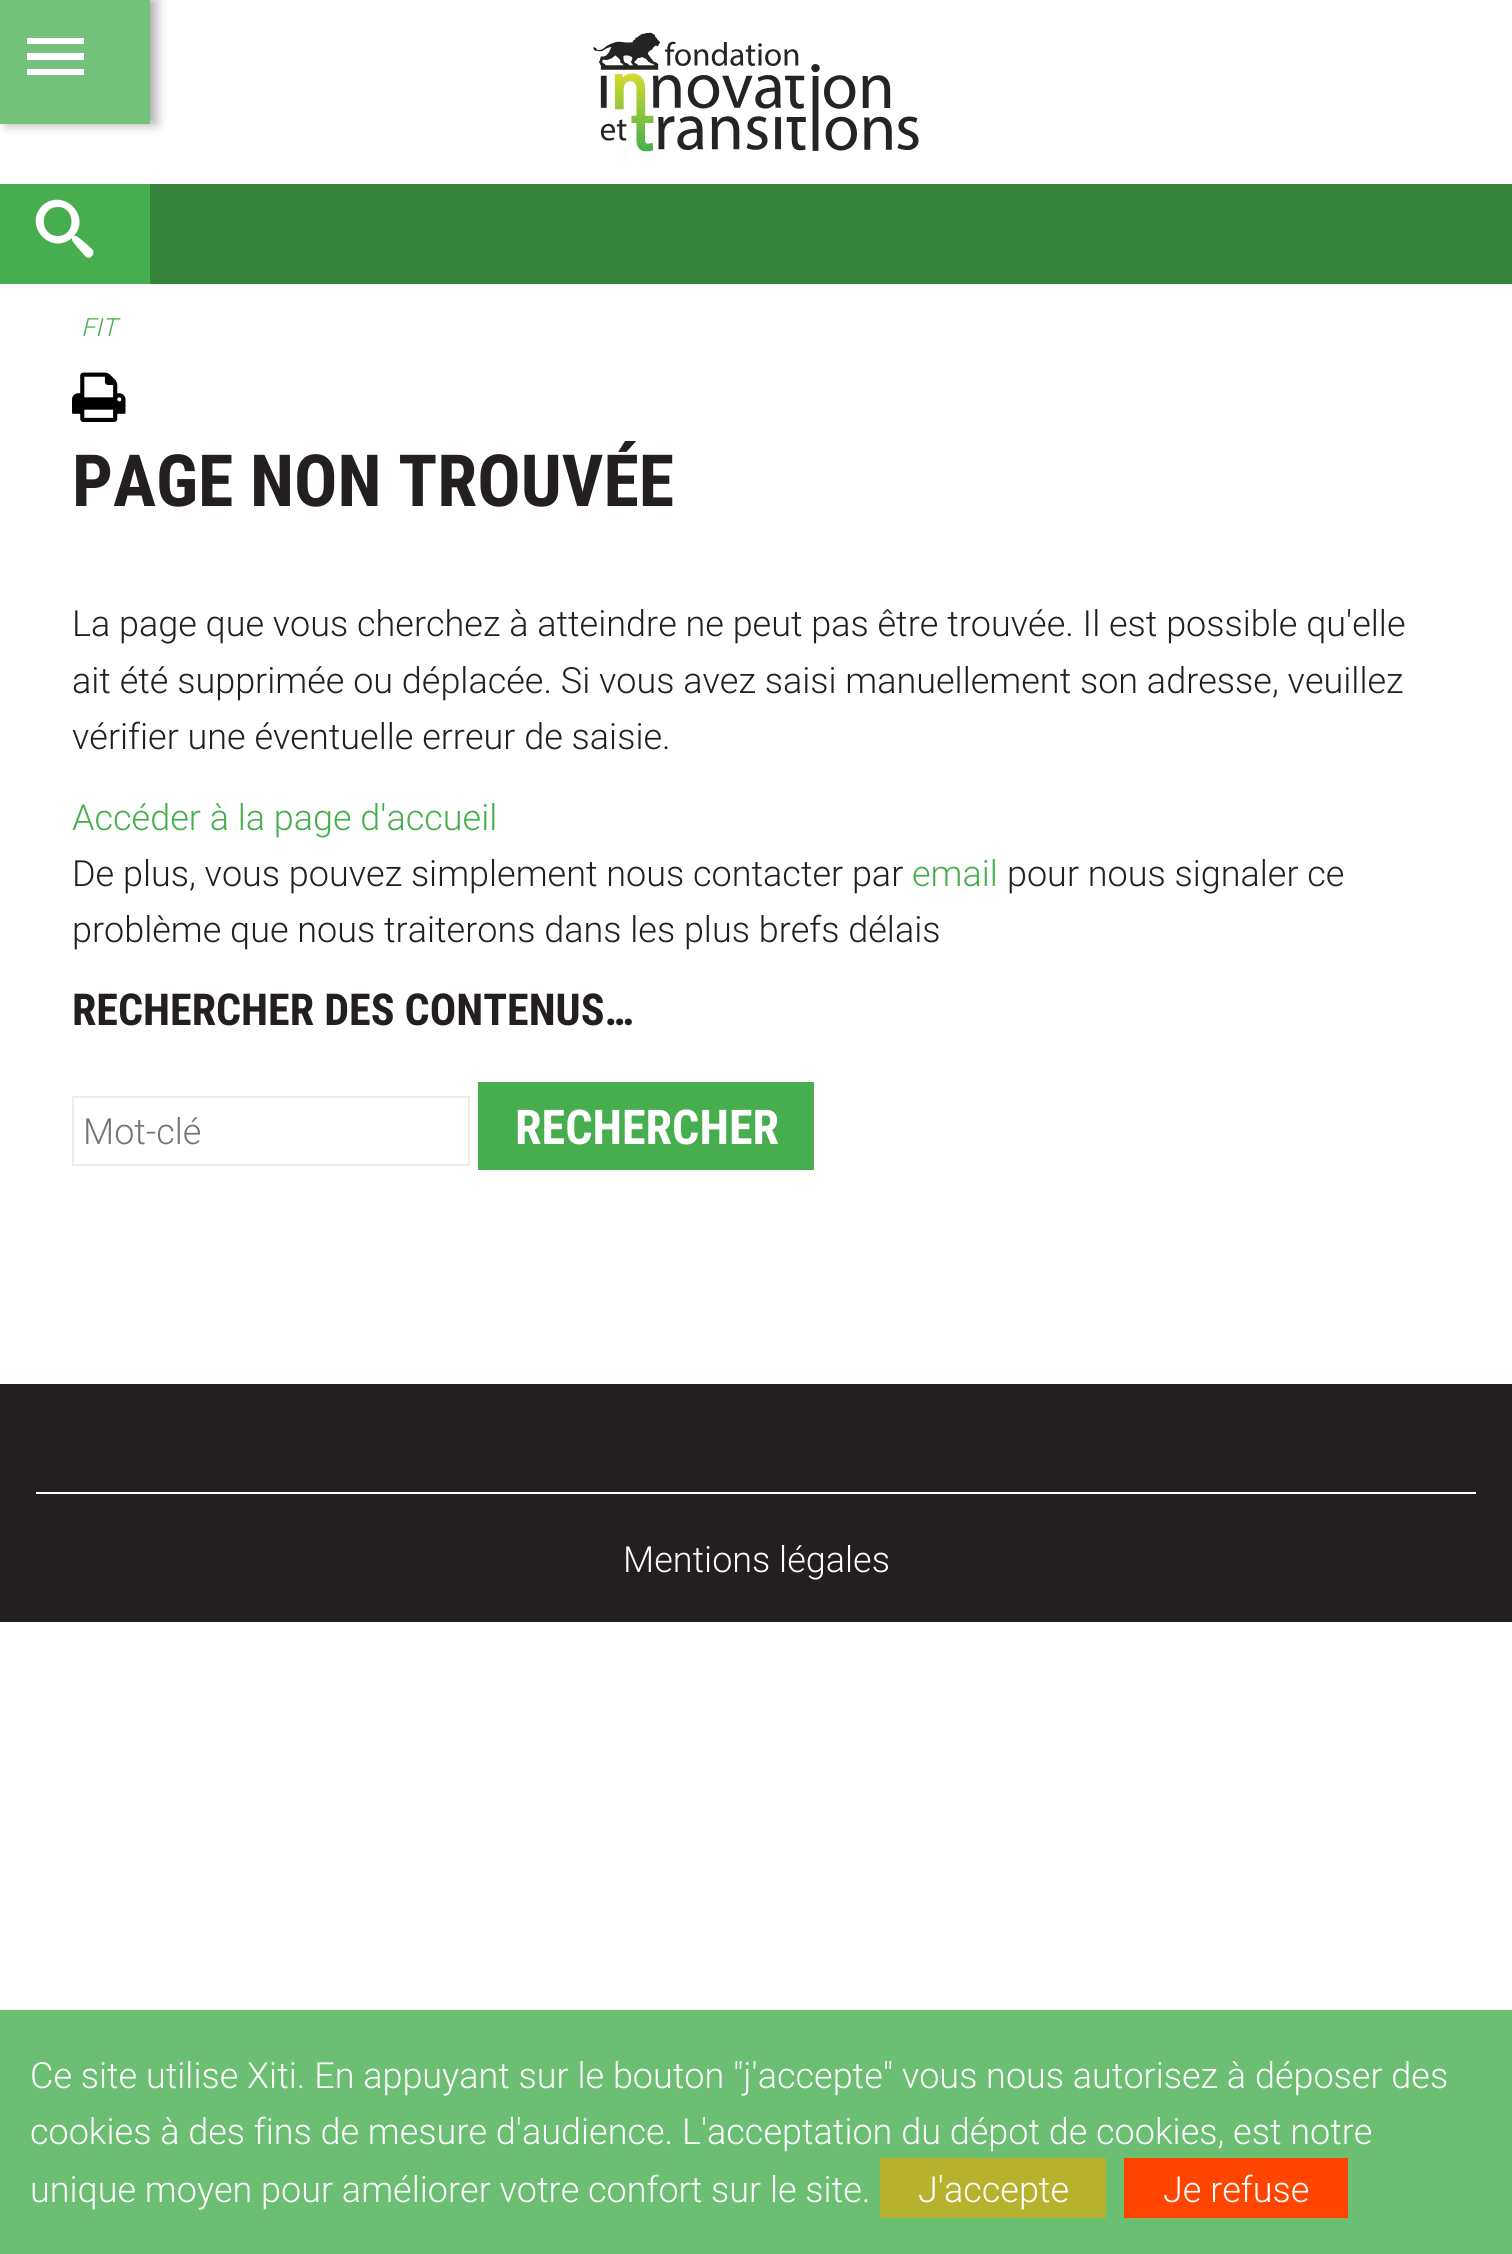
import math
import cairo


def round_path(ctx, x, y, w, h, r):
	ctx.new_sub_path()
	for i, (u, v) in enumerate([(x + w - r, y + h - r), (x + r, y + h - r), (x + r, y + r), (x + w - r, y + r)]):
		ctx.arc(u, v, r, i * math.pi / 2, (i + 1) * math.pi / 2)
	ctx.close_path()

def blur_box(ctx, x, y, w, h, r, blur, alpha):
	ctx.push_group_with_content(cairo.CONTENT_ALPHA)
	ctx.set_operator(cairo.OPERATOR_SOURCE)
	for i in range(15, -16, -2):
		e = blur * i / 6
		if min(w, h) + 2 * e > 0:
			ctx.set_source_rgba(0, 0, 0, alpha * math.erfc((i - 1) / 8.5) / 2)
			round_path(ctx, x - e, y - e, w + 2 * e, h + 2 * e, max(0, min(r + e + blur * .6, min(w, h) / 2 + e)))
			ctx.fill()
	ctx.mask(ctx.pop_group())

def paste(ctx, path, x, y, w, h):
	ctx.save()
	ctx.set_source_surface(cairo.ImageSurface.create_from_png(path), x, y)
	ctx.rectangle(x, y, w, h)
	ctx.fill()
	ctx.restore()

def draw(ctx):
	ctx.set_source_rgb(1, 1, 1)
	ctx.paint()
	ctx.set_source_rgb(0, 0, 0)
	blur_box(ctx, 6, 0, 150, 124, 0, 6, 0.34)
	ctx.set_source_rgb(0.455, 0.761, 0.478)
	ctx.rectangle(0, 0, 150, 124)
	ctx.fill()
	ctx.set_source_rgb(1, 1, 1)
	ctx.new_path()
	ctx.move_to(27, 38)
	ctx.line_to(84, 38)
	ctx.line_to(84, 44)
	ctx.line_to(27, 44)
	ctx.close_path()
	ctx.move_to(27, 60)
	ctx.line_to(27, 53)
	ctx.line_to(84, 53)
	ctx.line_to(84, 60)
	ctx.close_path()
	ctx.move_to(27, 75)
	ctx.line_to(27, 69)
	ctx.line_to(84, 69)
	ctx.line_to(84, 75)
	ctx.close_path()
	ctx.fill()
	ctx.select_font_face('Roboto Light', cairo.FONT_SLANT_ITALIC)
	ctx.set_font_size(25)
	ctx.set_source_rgb(0.275, 0.682, 0.306)
	ctx.move_to(81, 336)
	ctx.show_text('FIT')
	paste(ctx, 'media/1.png', 72, 372, 54, 50)
	ctx.select_font_face('Roboto Condensed', cairo.FONT_SLANT_NORMAL, cairo.FONT_WEIGHT_BOLD)
	ctx.set_font_size(72)
	ctx.set_source_rgb(0.137, 0.122, 0.125)
	ctx.move_to(72, 506)
	ctx.show_text('PAGE NON TROUVÉE')
	ctx.select_font_face('Roboto Light')
	ctx.set_font_size(36)
	for x, y, s in [
		(72, 636, 'La page que vous cherchez à atteindre ne peut pas être trouvée. Il est possible qu\'elle'),
		(72, 693, 'ait été supprimée ou déplacée. Si vous avez saisi manuellement son adresse, veuillez'),
		(72, 749, 'vérifier une éventuelle erreur de saisie.'),
	]:
		ctx.move_to(x, y)
		ctx.show_text(s)
	ctx.set_source_rgb(0.275, 0.682, 0.306)
	ctx.move_to(72, 830)
	ctx.show_text('Accéder à la page d\'accueil')
	ctx.set_source_rgb(0.137, 0.122, 0.125)
	ctx.move_to(72, 886)
	ctx.show_text('De plus, vous pouvez simplement nous contacter par')
	ctx.set_source_rgb(0.275, 0.682, 0.306)
	ctx.move_to(912, 886)
	ctx.show_text('email')
	ctx.set_source_rgb(0.137, 0.122, 0.125)
	ctx.move_to(1007, 886)
	ctx.show_text('pour nous signaler ce')
	ctx.move_to(72, 942)
	ctx.show_text('problème que nous traiterons dans les plus brefs délais')
	ctx.select_font_face('Roboto Condensed', cairo.FONT_SLANT_NORMAL, cairo.FONT_WEIGHT_BOLD)
	ctx.set_font_size(44)
	ctx.move_to(72, 1025)
	ctx.show_text('RECHERCHER DES CONTENUS…')
	ctx.rectangle(73, 1097, 396, 68)
	ctx.set_source_rgb(0.945, 0.925, 0.91)
	ctx.stroke()
	ctx.select_font_face('Roboto Light')
	ctx.set_font_size(36)
	ctx.set_source_rgb(0.459, 0.459, 0.459)
	ctx.move_to(83, 1144)
	ctx.show_text('Mot-clé')
	ctx.set_source_rgb(0.275, 0.682, 0.306)
	ctx.rectangle(478, 1082, 336, 88)
	ctx.fill()
	ctx.select_font_face('Roboto Condensed', cairo.FONT_SLANT_NORMAL, cairo.FONT_WEIGHT_BOLD)
	ctx.set_font_size(48)
	ctx.set_source_rgb(1, 1, 1)
	ctx.move_to(515, 1144)
	ctx.show_text('RECHERCHER')
	ctx.set_source_rgb(0.137, 0.122, 0.125)
	ctx.rectangle(0, 1384, 1512, 238)
	ctx.fill()
	ctx.set_source_rgb(1, 1, 1)
	ctx.rectangle(36, 1492, 1440, 2)
	ctx.fill()
	ctx.select_font_face('Roboto Light')
	ctx.set_font_size(36)
	ctx.move_to(623, 1572)
	ctx.show_text('Mentions légales')
	paste(ctx, 'media/2.png', 593, 32, 326, 120)
	ctx.set_source_rgb(0.275, 0.682, 0.306)
	ctx.rectangle(0, 184, 150, 100)
	ctx.fill()
	ctx.set_source_rgb(1, 1, 1)
	ctx.new_path()
	ctx.move_to(92, 249)
	ctx.line_to(83, 241)
	ctx.curve_to(81, 240, 77, 235, 74, 236)
	ctx.curve_to(92, 215, 62, 187, 42, 206)
	ctx.curve_to(23, 226, 51, 256, 72, 238)
	ctx.curve_to(71, 241, 76, 245, 77, 247)
	ctx.line_to(86, 257)
	ctx.curve_to(91, 260, 96, 253, 92, 249)
	ctx.close_path()
	ctx.move_to(58, 236)
	ctx.curve_to(39, 236, 39, 207, 58, 207)
	ctx.curve_to(76, 207, 76, 236, 58, 236)
	ctx.close_path()
	ctx.fill()
	ctx.set_source_rgb(0.208, 0.514, 0.231)
	ctx.rectangle(150, 184, 1362, 100)
	ctx.fill()
	ctx.set_source_rgb(0.42, 0.745, 0.447)
	ctx.rectangle(0, 2010, 1512, 244)
	ctx.fill()
	ctx.set_source_rgb(1, 1, 1)
	for x, y, s in [
		(30, 2088, 'Ce site utilise Xiti. En appuyant sur le bouton "j\'accepte" vous nous autorisez à déposer des'),
		(30, 2144, 'cookies à des fins de mesure d\'audience. L\'acceptation du dépot de cookies, est notre'),
		(30, 2202, 'unique moyen pour améliorer votre confort sur le site.'),
	]:
		ctx.move_to(x, y)
		ctx.show_text(s)
	ctx.set_source_rgb(0.718, 0.698, 0.18)
	ctx.rectangle(880, 2158, 226, 60)
	ctx.fill()
	ctx.set_source_rgb(1, 1, 1)
	ctx.move_to(918, 2202)
	ctx.show_text('J\'accepte')
	ctx.set_source_rgb(1, 0.271, 0)
	ctx.rectangle(1124, 2158, 224, 60)
	ctx.fill()
	ctx.set_source_rgb(1, 1, 1)
	ctx.move_to(1163, 2202)
	ctx.show_text('Je refuse')


surface = cairo.ImageSurface(cairo.FORMAT_RGB24, 1512, 2254)
ctx = cairo.Context(surface)
options = cairo.FontOptions()
options.set_hint_metrics(cairo.HINT_METRICS_OFF)
options.set_hint_style(cairo.HINT_STYLE_NONE)
ctx.set_font_options(options)
ctx.set_miter_limit(4)
draw(ctx)
surface.write_to_png('image.png')
